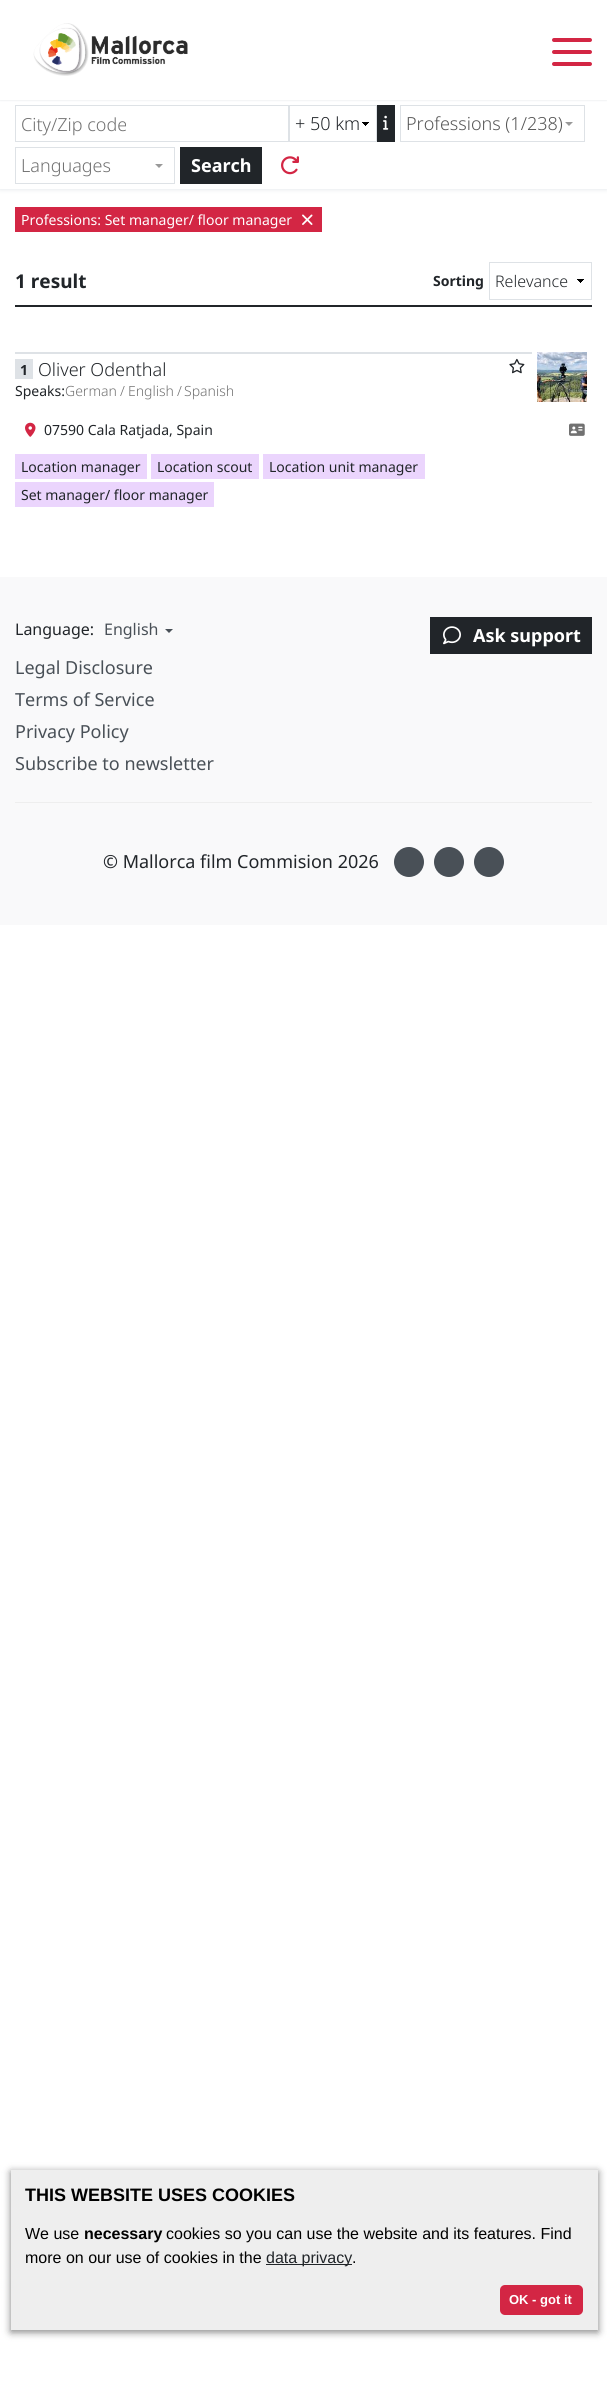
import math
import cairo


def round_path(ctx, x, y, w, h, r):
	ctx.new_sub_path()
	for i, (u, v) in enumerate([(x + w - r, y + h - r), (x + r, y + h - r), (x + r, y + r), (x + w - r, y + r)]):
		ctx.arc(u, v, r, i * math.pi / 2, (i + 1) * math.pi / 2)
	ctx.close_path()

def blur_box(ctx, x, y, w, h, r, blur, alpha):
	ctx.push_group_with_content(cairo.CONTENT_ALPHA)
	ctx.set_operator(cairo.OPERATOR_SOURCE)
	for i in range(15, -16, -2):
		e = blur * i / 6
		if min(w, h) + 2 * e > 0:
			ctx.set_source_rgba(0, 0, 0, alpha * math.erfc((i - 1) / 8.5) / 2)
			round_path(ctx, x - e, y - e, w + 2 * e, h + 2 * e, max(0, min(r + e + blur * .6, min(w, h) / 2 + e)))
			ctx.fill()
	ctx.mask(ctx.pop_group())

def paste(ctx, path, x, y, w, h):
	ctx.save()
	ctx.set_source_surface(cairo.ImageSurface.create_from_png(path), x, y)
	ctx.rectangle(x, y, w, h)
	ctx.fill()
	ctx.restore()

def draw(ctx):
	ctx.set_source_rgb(1, 1, 1)
	ctx.paint()
	ctx.set_source_rgb(0.871, 0.886, 0.902)
	blur_box(ctx, 0, 0, 607, 100, 0, 1, 1)
	ctx.save()
	ctx.rectangle(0, 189, 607, 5)
	ctx.clip()
	blur_box(ctx, 0, 100, 607, 89, 0, 2.5, 1)
	ctx.restore()
	ctx.set_source_rgb(1, 1, 1)
	ctx.rectangle(0, 0, 607, 100)
	ctx.fill()
	paste(ctx, 'media/1.png', 33, 23, 155, 53)
	ctx.set_source_rgb(0.827, 0.149, 0.267)
	round_path(ctx, 552, 62, 40, 4, 2)
	ctx.fill()
	round_path(ctx, 552, 38, 40, 4, 2)
	ctx.fill()
	round_path(ctx, 552, 50, 40, 4, 2)
	ctx.fill()
	ctx.rectangle(15.5, 105.5, 273, 36)
	ctx.set_source_rgb(0.871, 0.886, 0.902)
	ctx.set_line_width(1)
	ctx.stroke()
	ctx.select_font_face('Noto Sans Light')
	ctx.set_font_size(18)
	ctx.set_source_rgb(0.443, 0.443, 0.443)
	ctx.move_to(21, 131)
	ctx.show_text('City/Zip code')
	paste(ctx, 'media/2.png', 362, 122, 7, 4)
	ctx.rectangle(289.5, 105.5, 87, 36)
	ctx.set_source_rgb(0.871, 0.886, 0.902)
	ctx.stroke()
	ctx.set_source_rgb(0.129, 0.145, 0.161)
	ctx.move_to(295, 130)
	ctx.show_text('+ 50 km')
	ctx.rectangle(377, 105, 18, 37)
	ctx.fill()
	paste(ctx, 'media/3.png', 383, 115, 6, 15)
	ctx.rectangle(400.5, 105.5, 184, 36)
	ctx.set_source_rgb(0.871, 0.886, 0.902)
	ctx.stroke()
	ctx.set_source_rgb(0.333, 0.333, 0.333)
	ctx.move_to(406, 130)
	ctx.show_text('Professions (1/238)')
	ctx.set_source_rgb(0.6, 0.6, 0.6)
	ctx.new_path()
	ctx.move_to(565, 122)
	ctx.line_to(573, 122)
	ctx.line_to(569, 126)
	ctx.close_path()
	ctx.fill()
	ctx.rectangle(15.5, 147.5, 159, 36)
	ctx.set_source_rgb(0.871, 0.886, 0.902)
	ctx.stroke()
	ctx.set_source_rgb(0.443, 0.443, 0.443)
	ctx.move_to(21, 172)
	ctx.show_text('Languages')
	ctx.set_source_rgb(0.6, 0.6, 0.6)
	ctx.new_path()
	ctx.move_to(155, 164)
	ctx.line_to(163, 164)
	ctx.line_to(159, 168)
	ctx.close_path()
	ctx.fill()
	ctx.set_source_rgb(0.129, 0.145, 0.161)
	ctx.rectangle(180, 147, 82, 37)
	ctx.fill()
	ctx.select_font_face('Noto Sans', cairo.FONT_SLANT_NORMAL, cairo.FONT_WEIGHT_BOLD)
	ctx.set_source_rgb(1, 1, 1)
	ctx.move_to(191, 172)
	ctx.show_text('Search')
	paste(ctx, 'media/4.png', 281, 156, 18, 19)
	ctx.set_source_rgb(0.827, 0.149, 0.267)
	ctx.rectangle(15, 207, 307, 25)
	ctx.fill()
	ctx.select_font_face('Noto Sans')
	ctx.set_font_size(14)
	ctx.set_source_rgb(1, 1, 1)
	ctx.move_to(21, 225)
	ctx.show_text('Professions: Set manager/ floor manager')
	paste(ctx, 'media/5.png', 302, 214, 11, 11)
	ctx.set_source_rgb(0.129, 0.145, 0.161)
	ctx.rectangle(15, 305, 577, 2)
	ctx.fill()
	ctx.select_font_face('Noto Sans', cairo.FONT_SLANT_NORMAL, cairo.FONT_WEIGHT_BOLD)
	ctx.set_font_size(19)
	ctx.move_to(15, 288)
	ctx.show_text('1 result')
	ctx.set_font_size(14)
	ctx.move_to(433, 286)
	ctx.show_text('Sorting')
	paste(ctx, 'media/2.png', 577, 279, 7, 4)
	ctx.rectangle(489.5, 262.5, 102, 37)
	ctx.set_source_rgb(0.871, 0.886, 0.902)
	ctx.stroke()
	ctx.select_font_face('Noto Sans Light')
	ctx.set_font_size(16)
	ctx.set_source_rgb(0.129, 0.145, 0.161)
	ctx.move_to(495, 287)
	ctx.show_text('Relevance')
	ctx.set_source_rgb(0.871, 0.886, 0.902)
	ctx.rectangle(15, 352, 517, 2)
	ctx.fill()
	ctx.rectangle(15, 359, 18, 20)
	ctx.fill()
	ctx.select_font_face('Noto Sans', cairo.FONT_SLANT_NORMAL, cairo.FONT_WEIGHT_BOLD)
	ctx.set_font_size(14)
	ctx.set_source_rgb(0.129, 0.145, 0.161)
	ctx.move_to(20, 375)
	ctx.show_text('1')
	ctx.select_font_face('Noto Sans Light')
	ctx.set_font_size(18)
	ctx.move_to(38, 376)
	ctx.show_text('Oliver Odenthal')
	paste(ctx, 'media/6.png', 509, 358, 16, 16)
	ctx.select_font_face('Noto Sans')
	ctx.set_font_size(14)
	ctx.move_to(15, 396)
	ctx.show_text('Speaks:')
	ctx.select_font_face('Noto Sans Light')
	ctx.set_source_rgb(0.443, 0.443, 0.443)
	for x, y, s in [
		(65, 396, 'German'),
		(120, 396, '/'),
		(128, 396, 'English'),
		(177, 396, '/'),
		(184, 396, 'Spanish'),
	]:
		ctx.move_to(x, y)
		ctx.show_text(s)
	paste(ctx, 'media/7.png', 537, 352, 50, 50)
	paste(ctx, 'media/8.png', 25, 422, 11, 15)
	ctx.select_font_face('Noto Sans')
	ctx.set_source_rgb(0.129, 0.145, 0.161)
	ctx.move_to(44, 435)
	ctx.show_text('07590 Cala Ratjada, Spain')
	paste(ctx, 'media/9.png', 569, 423, 16, 13)
	ctx.set_source_rgb(0.918, 0.835, 0.992)
	ctx.rectangle(15, 454, 132, 25)
	ctx.fill()
	ctx.set_source_rgb(0.129, 0.145, 0.161)
	ctx.move_to(21, 472)
	ctx.show_text('Location manager')
	ctx.set_source_rgb(0.918, 0.835, 0.992)
	ctx.rectangle(151, 454, 108, 25)
	ctx.fill()
	ctx.set_source_rgb(0.129, 0.145, 0.161)
	ctx.move_to(157, 472)
	ctx.show_text('Location scout')
	ctx.set_source_rgb(0.918, 0.835, 0.992)
	ctx.rectangle(263, 454, 162, 25)
	ctx.fill()
	ctx.set_source_rgb(0.129, 0.145, 0.161)
	ctx.move_to(269, 472)
	ctx.show_text('Location unit manager')
	ctx.set_source_rgb(0.918, 0.835, 0.992)
	ctx.rectangle(15, 482, 199, 25)
	ctx.fill()
	ctx.set_source_rgb(0.129, 0.145, 0.161)
	ctx.move_to(21, 500)
	ctx.show_text('Set manager/ floor manager')
	ctx.set_source_rgb(0.973, 0.976, 0.98)
	ctx.rectangle(0, 577, 607, 348)
	ctx.fill()
	ctx.set_font_size(16)
	ctx.set_source_rgb(0.129, 0.145, 0.161)
	ctx.move_to(15, 635)
	ctx.show_text('Language:')
	ctx.set_source_rgb(0.286, 0.314, 0.341)
	ctx.move_to(104, 635)
	ctx.show_text('English')
	ctx.new_path()
	ctx.move_to(165, 629)
	ctx.line_to(173, 629)
	ctx.line_to(169, 633)
	ctx.close_path()
	ctx.fill()
	ctx.set_source_rgb(0.129, 0.145, 0.161)
	ctx.rectangle(430, 617, 162, 37)
	ctx.fill()
	paste(ctx, 'media/10.png', 443, 626, 18, 19)
	ctx.select_font_face('Noto Sans', cairo.FONT_SLANT_NORMAL, cairo.FONT_WEIGHT_BOLD)
	ctx.set_font_size(18)
	ctx.set_source_rgb(1, 1, 1)
	ctx.move_to(473, 642)
	ctx.show_text('Ask support')
	ctx.select_font_face('Noto Sans')
	ctx.set_source_rgb(0.286, 0.314, 0.341)
	for x, y, s in [
		(15, 674, 'Legal Disclosure'),
		(15, 706, 'Terms of Service'),
		(15, 738, 'Privacy Policy'),
		(15, 770, 'Subscribe to newsletter'),
	]:
		ctx.move_to(x, y)
		ctx.show_text(s)
	ctx.set_source_rgb(0.933, 0.933, 0.933)
	ctx.rectangle(15, 802, 577, 1)
	ctx.fill()
	ctx.set_source_rgb(0.129, 0.145, 0.161)
	ctx.move_to(103, 868)
	ctx.show_text('© Mallorca film Commision 2026')
	ctx.set_source_rgb(0.286, 0.314, 0.341)
	ctx.new_path()
	ctx.arc(409, 862, 15, 0, 2 * math.pi)
	ctx.fill()
	ctx.arc(449, 862, 15, 0, 2 * math.pi)
	ctx.fill()
	ctx.arc(489, 862, 15, 0, 2 * math.pi)
	ctx.fill()
	ctx.set_source_rgb(0, 0, 0)
	blur_box(ctx, 11, 2172, 587, 160, 0, 4, 0.5)
	ctx.set_source_rgb(0.933, 0.933, 0.933)
	ctx.rectangle(11, 2170, 587, 160)
	ctx.fill()
	ctx.select_font_face('Liberation Sans', cairo.FONT_SLANT_NORMAL, cairo.FONT_WEIGHT_BOLD)
	ctx.set_source_rgb(0, 0, 0)
	ctx.move_to(25, 2201)
	ctx.show_text('THIS WEBSITE USES COOKIES')
	ctx.select_font_face('Liberation Sans')
	ctx.set_font_size(16)
	ctx.move_to(25, 2239)
	ctx.show_text('We use')
	ctx.select_font_face('Liberation Sans', cairo.FONT_SLANT_NORMAL, cairo.FONT_WEIGHT_BOLD)
	ctx.move_to(84, 2239)
	ctx.show_text('necessary')
	ctx.select_font_face('Liberation Sans')
	ctx.move_to(166, 2239)
	ctx.show_text('cookies so you can use the website and its features. Find')
	ctx.move_to(25, 2263)
	ctx.show_text('more on our use of cookies in the')
	ctx.set_source_rgb(0.129, 0.145, 0.161)
	ctx.rectangle(266, 2264, 86, 1)
	ctx.fill()
	ctx.move_to(266, 2263)
	ctx.show_text('data privacy')
	ctx.set_source_rgb(0, 0, 0)
	ctx.move_to(352, 2263)
	ctx.show_text('.')
	ctx.set_source_rgb(0.827, 0.149, 0.267)
	round_path(ctx, 500, 2285, 83, 30, 5)
	ctx.fill()
	ctx.select_font_face('Liberation Sans', cairo.FONT_SLANT_NORMAL, cairo.FONT_WEIGHT_BOLD)
	ctx.set_font_size(13)
	ctx.set_source_rgb(1, 1, 1)
	ctx.move_to(509, 2304)
	ctx.show_text('OK - got it')


surface = cairo.ImageSurface(cairo.FORMAT_RGB24, 607, 2390)
ctx = cairo.Context(surface)
options = cairo.FontOptions()
options.set_hint_metrics(cairo.HINT_METRICS_OFF)
options.set_hint_style(cairo.HINT_STYLE_NONE)
ctx.set_font_options(options)
ctx.set_miter_limit(4)
draw(ctx)
surface.write_to_png('image.png')
